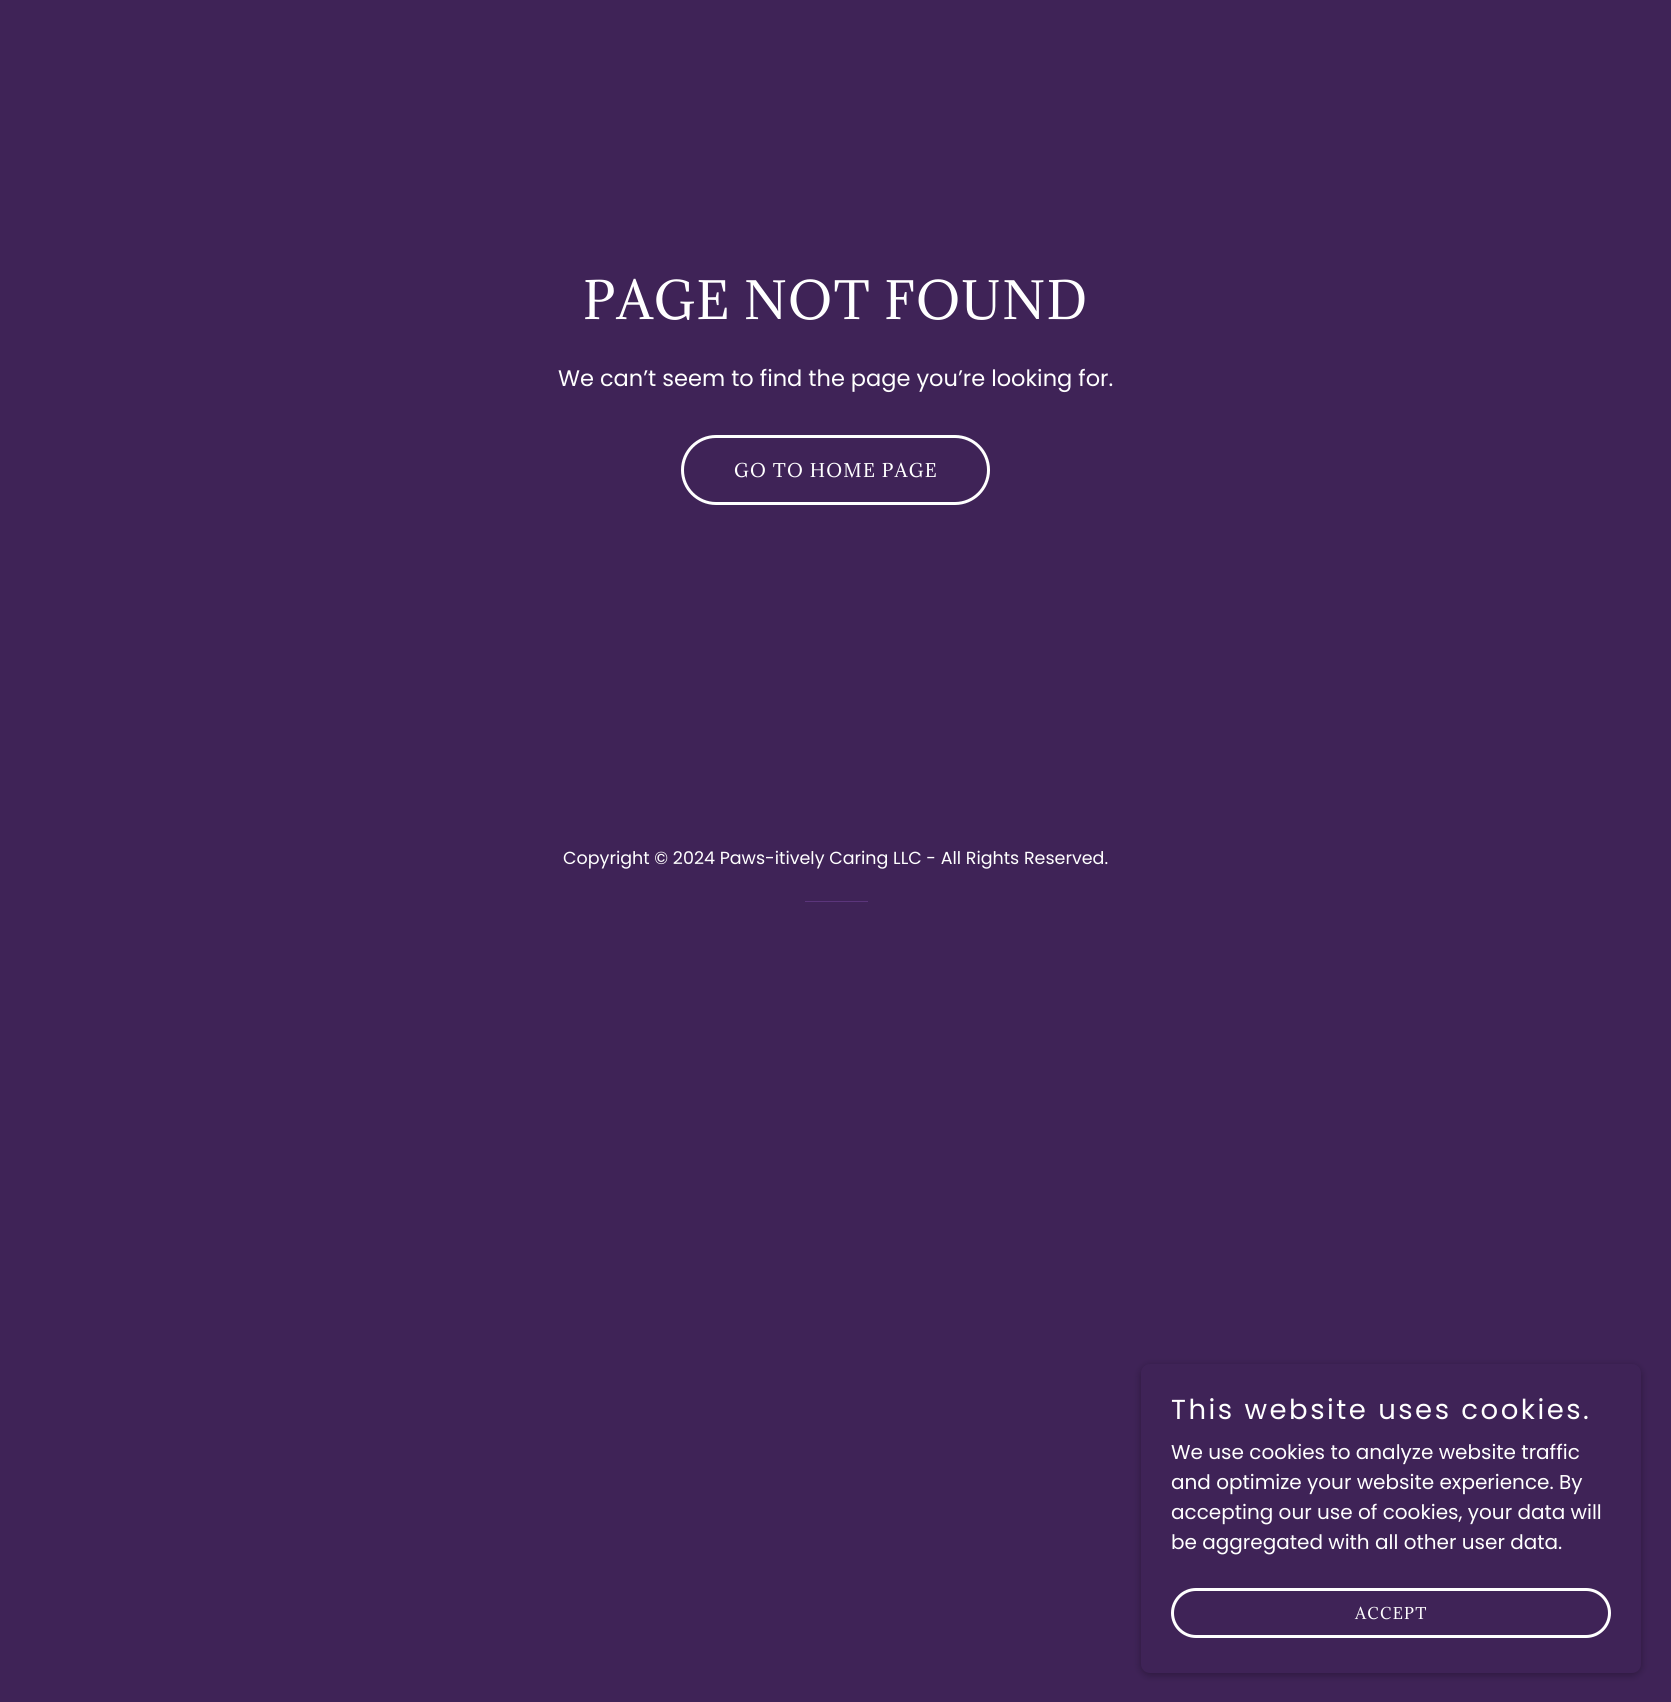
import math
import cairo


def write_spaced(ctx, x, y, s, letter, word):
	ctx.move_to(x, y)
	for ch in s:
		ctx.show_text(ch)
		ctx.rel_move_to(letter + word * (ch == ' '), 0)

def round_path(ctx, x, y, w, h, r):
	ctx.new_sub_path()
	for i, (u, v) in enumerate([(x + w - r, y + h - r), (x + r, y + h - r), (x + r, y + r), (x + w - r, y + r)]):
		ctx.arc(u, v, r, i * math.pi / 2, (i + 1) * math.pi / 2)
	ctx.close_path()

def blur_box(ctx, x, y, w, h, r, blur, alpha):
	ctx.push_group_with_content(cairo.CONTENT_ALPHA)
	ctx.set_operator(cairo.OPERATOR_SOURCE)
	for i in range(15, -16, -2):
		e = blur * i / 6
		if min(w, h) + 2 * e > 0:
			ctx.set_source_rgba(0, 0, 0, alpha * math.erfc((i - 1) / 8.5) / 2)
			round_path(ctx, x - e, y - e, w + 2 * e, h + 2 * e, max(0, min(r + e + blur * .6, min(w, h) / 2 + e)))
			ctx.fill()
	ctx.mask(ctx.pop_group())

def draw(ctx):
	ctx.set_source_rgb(0.247, 0.137, 0.341)
	ctx.paint()
	ctx.select_font_face('Adamina')
	ctx.set_font_size(48.75)
	ctx.set_source_rgb(1, 1, 1)
	write_spaced(ctx, 583, 319, 'PAGE NOT FOUND', 1.25, 0)
	ctx.select_font_face('Poppins')
	ctx.set_font_size(22.5)
	ctx.move_to(558, 386)
	ctx.show_text('We can’t seem to find the page you’re looking for.')
	round_path(ctx, 682.5, 436.5, 306, 67, 33.5)
	ctx.set_line_width(3)
	ctx.stroke()
	ctx.select_font_face('Adamina')
	ctx.set_font_size(17.5)
	write_spaced(ctx, 734, 477, 'GO TO HOME PAGE', 1.25, 0)
	ctx.select_font_face('Poppins')
	ctx.move_to(563, 864)
	ctx.show_text('Copyright © 2024 Paws-itively Caring LLC - All Rights Reserved.')
	ctx.set_source_rgb(0.357, 0.208, 0.482)
	ctx.rectangle(805, 901, 63, 1)
	ctx.fill()
	ctx.set_source_rgb(0, 0, 0)
	blur_box(ctx, 1141, 1366, 500, 309, 9, 4, 0.3)
	ctx.set_source_rgb(0.247, 0.137, 0.341)
	round_path(ctx, 1141, 1364, 500, 309, 9)
	ctx.fill()
	ctx.set_font_size(27.5)
	ctx.set_source_rgb(1, 1, 1)
	write_spaced(ctx, 1171, 1419, 'This website uses cookies.', 2.5, 0)
	ctx.set_font_size(20)
	for x, y, s in [
		(1171, 1459, 'We use cookies to analyze website traffic'),
		(1171, 1489, 'and optimize your website experience. By'),
		(1171, 1519, 'accepting our use of cookies, your data will'),
		(1171, 1549, 'be aggregated with all other user data.'),
	]:
		ctx.move_to(x, y)
		ctx.show_text(s)
	round_path(ctx, 1172.5, 1589.5, 437, 47, 23.5)
	ctx.stroke()
	ctx.select_font_face('Adamina')
	ctx.set_font_size(15)
	write_spaced(ctx, 1355, 1619, 'ACCEPT', 1.25, 0)


surface = cairo.ImageSurface(cairo.FORMAT_RGB24, 1671, 1702)
ctx = cairo.Context(surface)
options = cairo.FontOptions()
options.set_hint_metrics(cairo.HINT_METRICS_OFF)
options.set_hint_style(cairo.HINT_STYLE_NONE)
ctx.set_font_options(options)
ctx.set_miter_limit(4)
draw(ctx)
surface.write_to_png('image.png')
